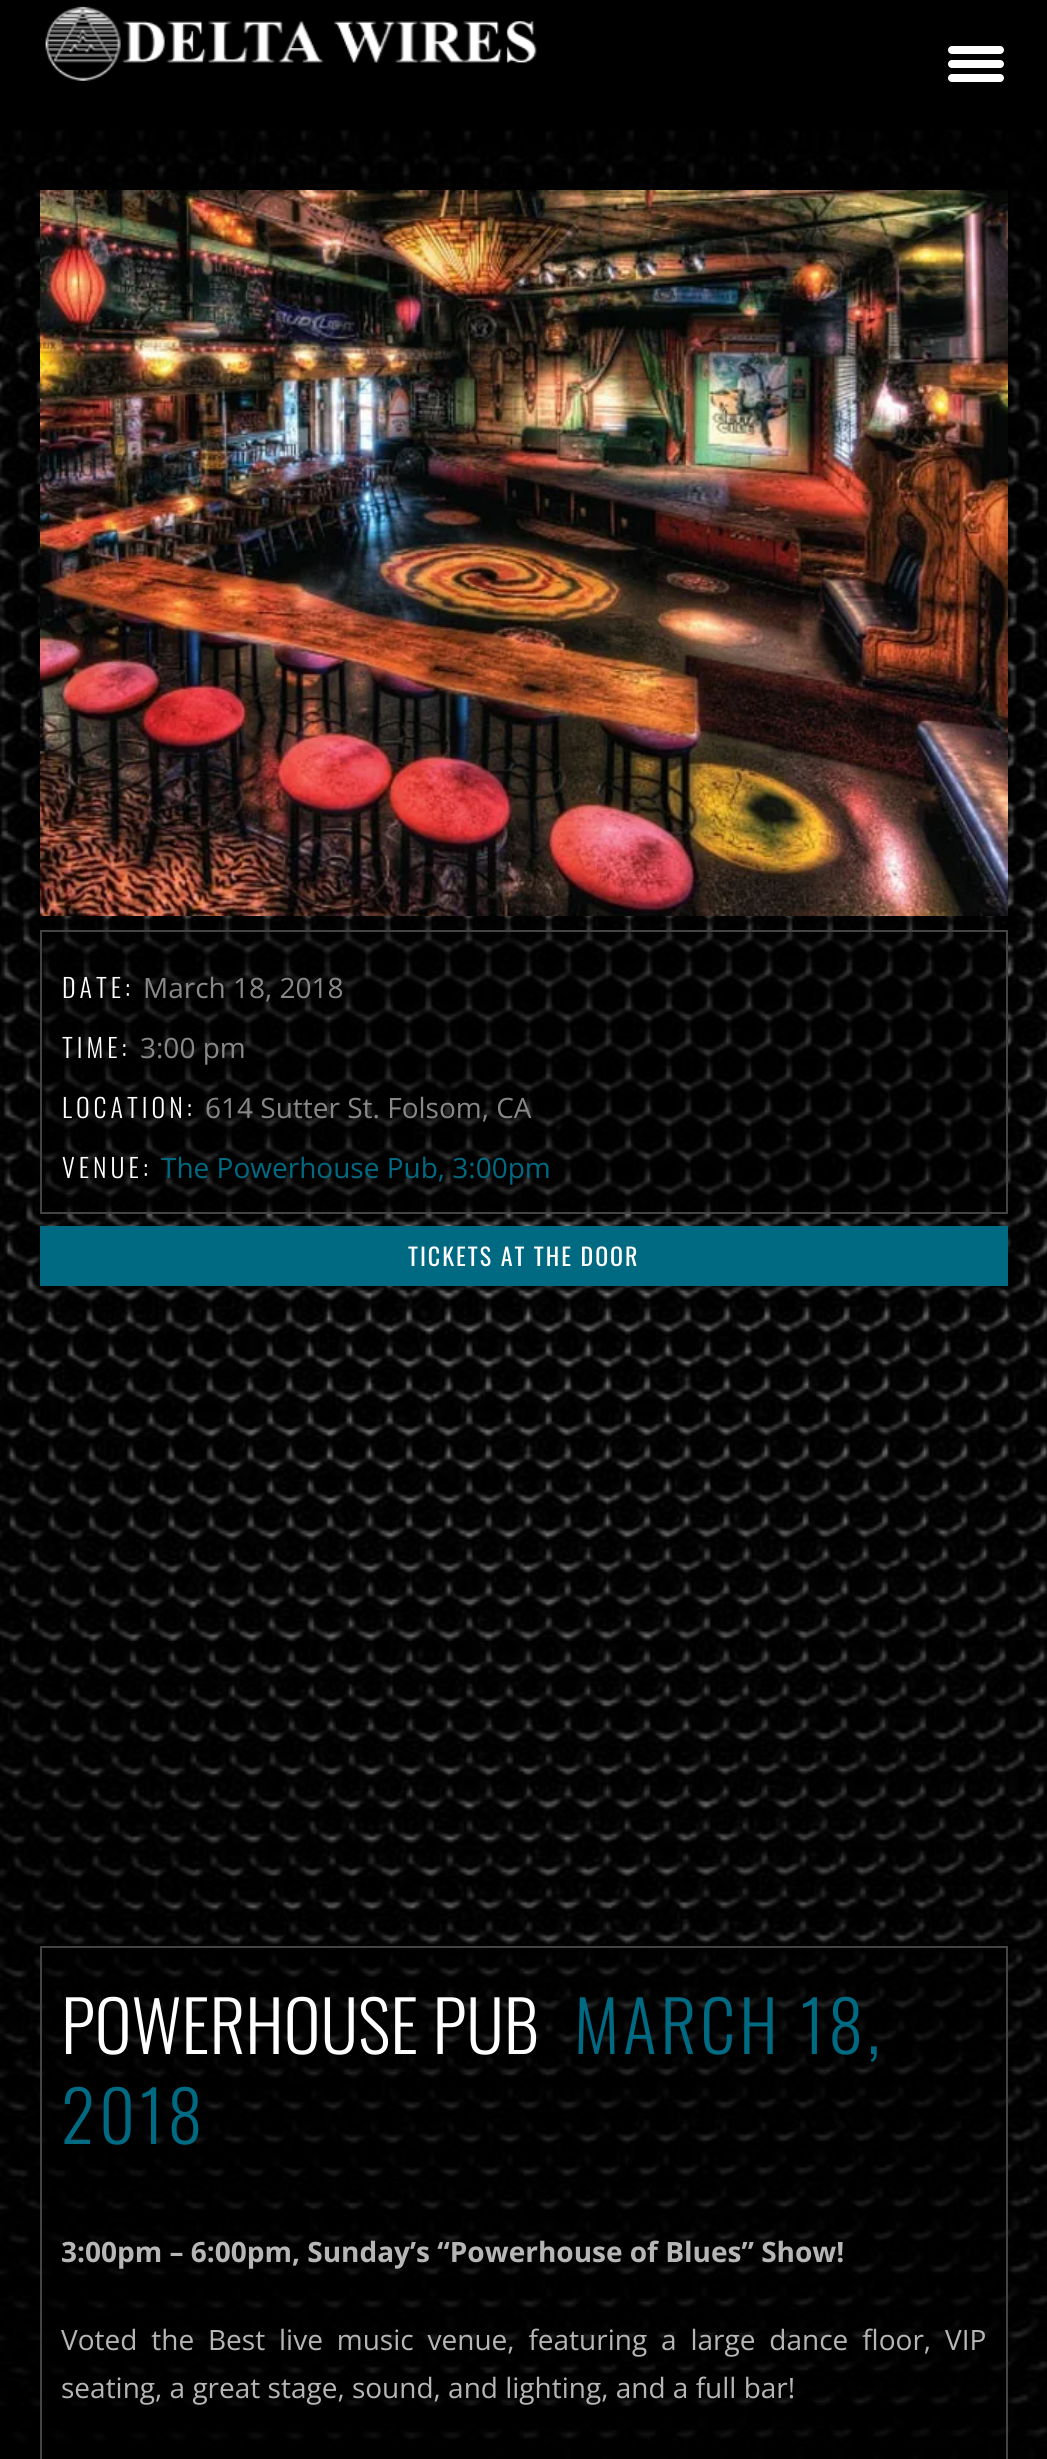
import math
import cairo


def write_spaced(ctx, x, y, s, letter, word):
	ctx.move_to(x, y)
	for ch in s:
		ctx.show_text(ch)
		ctx.rel_move_to(letter + word * (ch == ' '), 0)

def round_path(ctx, x, y, w, h, r):
	ctx.new_sub_path()
	for i, (u, v) in enumerate([(x + w - r, y + h - r), (x + r, y + h - r), (x + r, y + r), (x + w - r, y + r)]):
		ctx.arc(u, v, r, i * math.pi / 2, (i + 1) * math.pi / 2)
	ctx.close_path()

def paste(ctx, path, x, y, w, h):
	ctx.save()
	ctx.set_source_surface(cairo.ImageSurface.create_from_png(path), x, y)
	ctx.rectangle(x, y, w, h)
	ctx.fill()
	ctx.restore()

def draw(ctx):
	ctx.set_source_rgb(1, 1, 1)
	ctx.paint()
	ctx.set_source_rgb(0, 0, 0)
	ctx.rectangle(0, 0, 1047, 130)
	ctx.fill()
	paste(ctx, 'media/1.png', 45, 6, 492, 75)
	ctx.set_source_rgb(1, 1, 1)
	round_path(ctx, 948, 46, 56, 8, 4)
	ctx.fill()
	round_path(ctx, 948, 60, 56, 8, 4)
	ctx.fill()
	round_path(ctx, 948, 74, 56, 8, 4)
	ctx.fill()
	paste(ctx, 'media/2.png', 0, 130, 1047, 2329)
	paste(ctx, 'media/3.png', 40, 190, 968, 726)
	ctx.set_source_rgba(0, 0, 0, 0.5)
	ctx.rectangle(41, 931, 966, 282)
	ctx.fill_preserve()
	ctx.set_source_rgb(0.263, 0.271, 0.263)
	ctx.stroke()
	ctx.select_font_face('Oswald Light')
	ctx.set_font_size(26)
	ctx.set_source_rgb(1, 1, 1)
	write_spaced(ctx, 62, 998, 'DATE:', 4, 0)
	ctx.select_font_face('Open Sans')
	ctx.set_font_size(28)
	ctx.set_source_rgb(0.533, 0.533, 0.533)
	ctx.move_to(143, 998)
	ctx.show_text('March 18, 2018')
	ctx.select_font_face('Oswald Light')
	ctx.set_font_size(26)
	ctx.set_source_rgb(1, 1, 1)
	write_spaced(ctx, 62, 1058, 'TIME:', 4, 0)
	ctx.select_font_face('Open Sans')
	ctx.set_font_size(28)
	ctx.set_source_rgb(0.533, 0.533, 0.533)
	ctx.move_to(140, 1058)
	ctx.show_text('3:00 pm')
	ctx.select_font_face('Oswald Light')
	ctx.set_font_size(26)
	ctx.set_source_rgb(1, 1, 1)
	write_spaced(ctx, 62, 1118, 'LOCATION:', 4, 0)
	ctx.select_font_face('Open Sans')
	ctx.set_font_size(28)
	ctx.set_source_rgb(0.533, 0.533, 0.533)
	ctx.move_to(205, 1118)
	ctx.show_text('614 Sutter St. Folsom, CA')
	ctx.select_font_face('Oswald Light')
	ctx.set_font_size(26)
	ctx.set_source_rgb(1, 1, 1)
	write_spaced(ctx, 62, 1178, 'VENUE:', 4, 0)
	ctx.select_font_face('Open Sans')
	ctx.set_font_size(28)
	ctx.set_source_rgb(0, 0.416, 0.51)
	ctx.move_to(161, 1178)
	ctx.show_text('The Powerhouse Pub, 3:00pm')
	ctx.rectangle(40, 1226, 968, 60)
	ctx.fill()
	ctx.select_font_face('Oswald')
	ctx.set_font_size(24)
	ctx.set_source_rgb(1, 1, 1)
	write_spaced(ctx, 408, 1266, 'TICKETS AT THE DOOR', 2, 0)
	ctx.set_source_rgba(0, 0, 0, 0.5)
	ctx.rectangle(41, 1947, 966, 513)
	ctx.fill_preserve()
	ctx.set_source_rgb(0.263, 0.271, 0.263)
	ctx.stroke()
	ctx.select_font_face('Oswald Light')
	ctx.set_font_size(70)
	ctx.set_source_rgb(1, 1, 1)
	ctx.move_to(61, 2054)
	ctx.show_text('POWERHOUSE PUB')
	ctx.set_source_rgb(0, 0.416, 0.51)
	write_spaced(ctx, 574, 2054, 'MARCH 18,', 4, 0)
	write_spaced(ctx, 61, 2144, '2018', 4, 0)
	ctx.select_font_face('Open Sans', cairo.FONT_SLANT_NORMAL, cairo.FONT_WEIGHT_BOLD)
	ctx.set_font_size(28)
	ctx.set_source_rgb(0.714, 0.714, 0.714)
	ctx.move_to(61, 2262)
	ctx.show_text('3:00pm – 6:00pm, Sunday’s “Powerhouse of Blues” Show!')
	ctx.select_font_face('Open Sans')
	write_spaced(ctx, 61, 2350, 'Voted the Best live music venue, featuring a large dance floor, VIP', 0, 6.6)
	ctx.move_to(61, 2398)
	ctx.show_text('seating, a great stage, sound, and lighting, and a full bar!')


surface = cairo.ImageSurface(cairo.FORMAT_RGB24, 1047, 2459)
ctx = cairo.Context(surface)
options = cairo.FontOptions()
options.set_hint_metrics(cairo.HINT_METRICS_OFF)
options.set_hint_style(cairo.HINT_STYLE_NONE)
ctx.set_font_options(options)
ctx.set_miter_limit(4)
draw(ctx)
surface.write_to_png('image.png')
